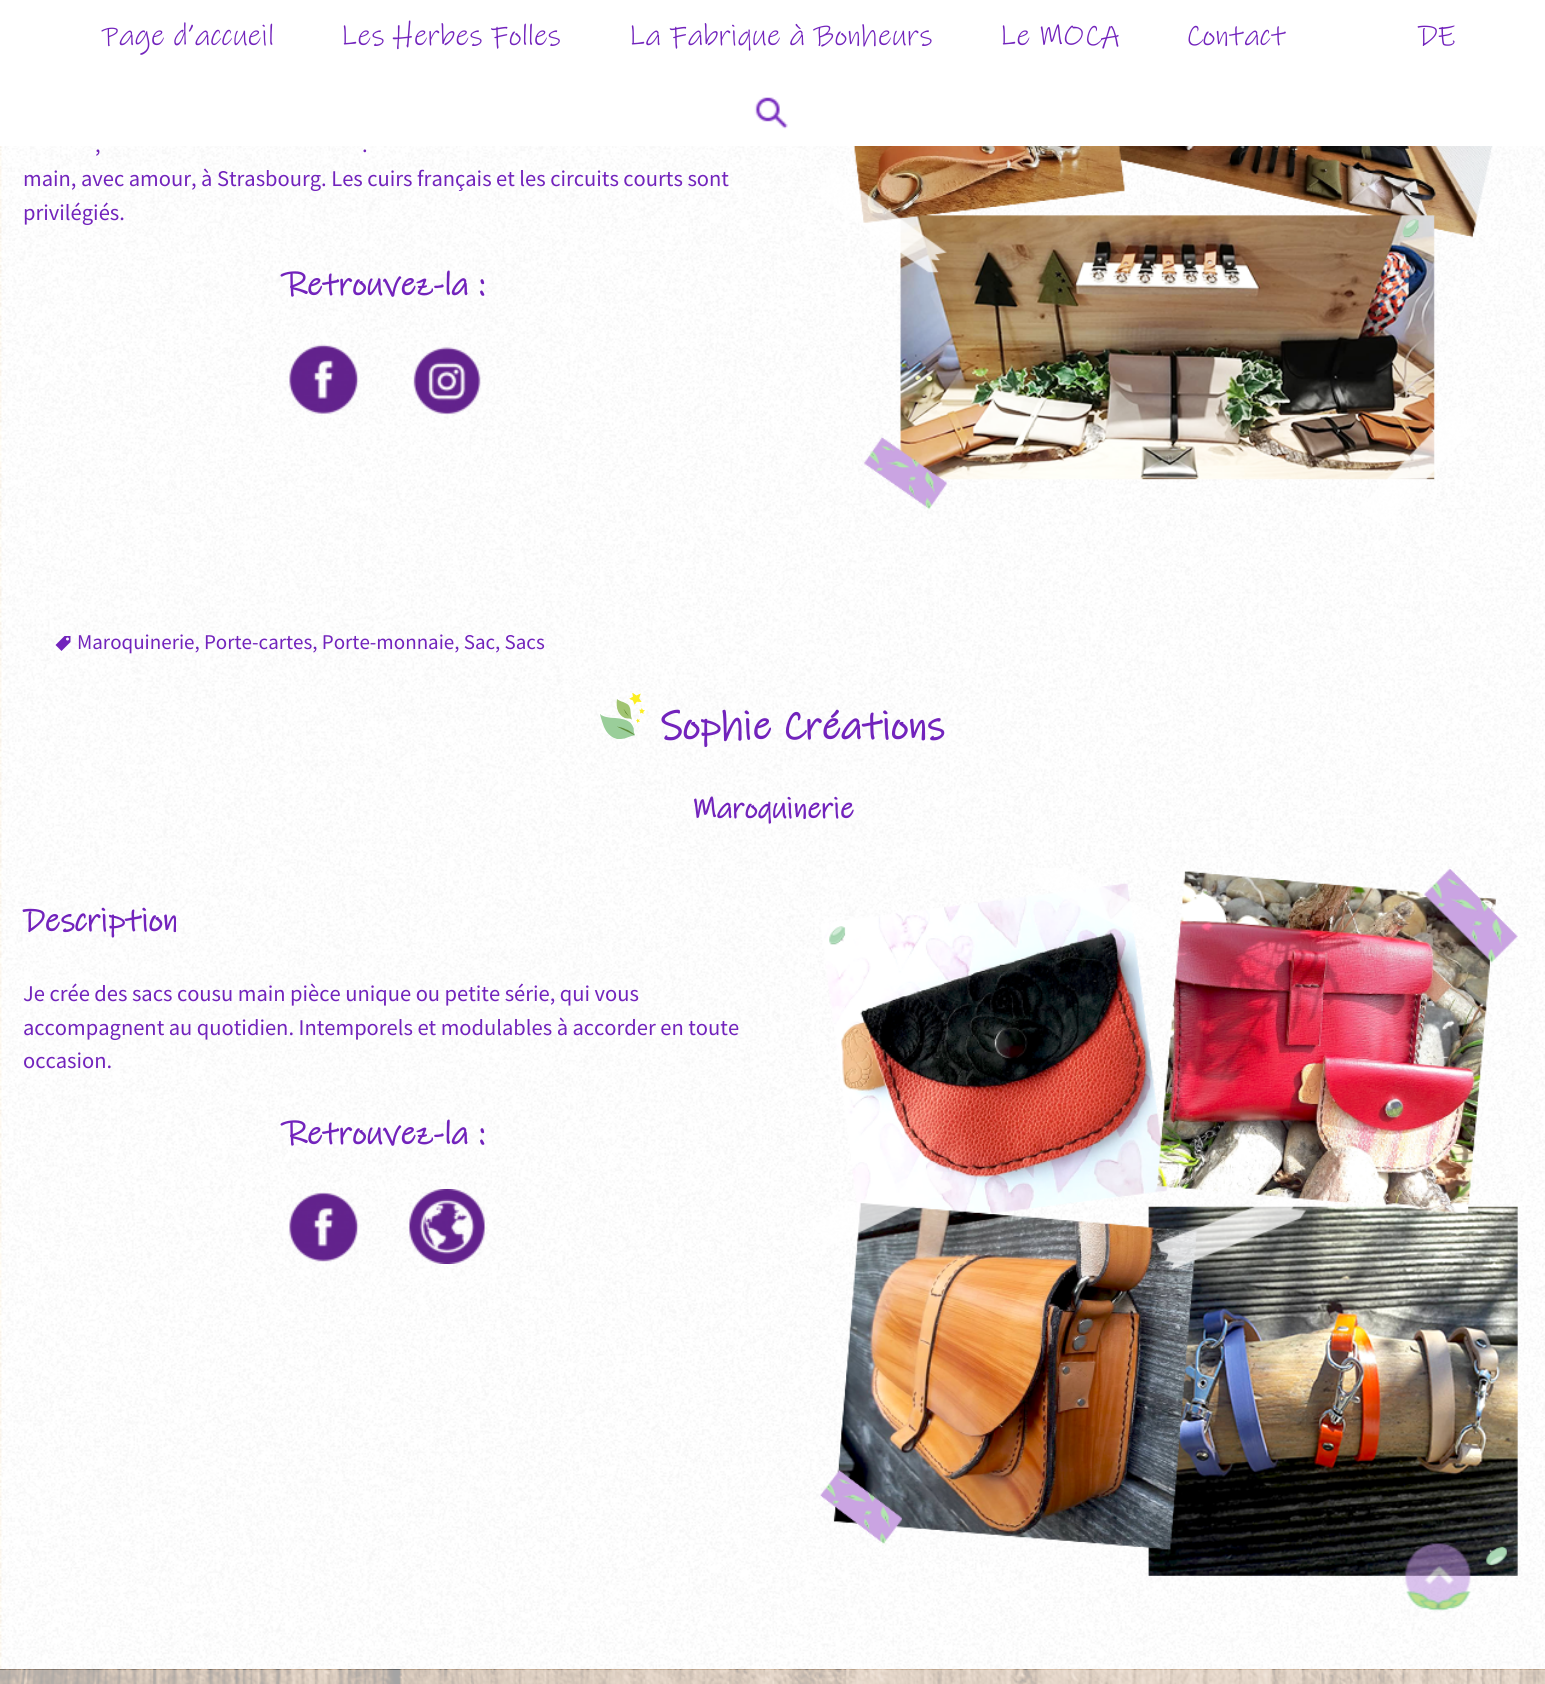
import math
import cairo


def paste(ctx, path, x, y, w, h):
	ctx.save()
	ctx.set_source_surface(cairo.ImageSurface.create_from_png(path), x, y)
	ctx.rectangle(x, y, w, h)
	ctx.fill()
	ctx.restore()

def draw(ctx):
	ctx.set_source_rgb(1, 1, 1)
	ctx.paint()
	ctx.select_font_face('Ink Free')
	ctx.set_font_size(30)
	ctx.set_source_rgb(0.447, 0.137, 0.737)
	for x, y, s in [
		(102, 45, 'Page d’accueil'),
		(340, 45, 'Les Herbes Folles'),
		(628, 45, 'La Fabrique à Bonheurs'),
		(999, 45, 'Le MOCA'),
		(1186, 45, 'Contact'),
		(1418, 45, 'DE'),
	]:
		ctx.move_to(x, y)
		ctx.show_text(s)
	paste(ctx, 'media/1.png', 754, 97, 34, 32)
	paste(ctx, 'media/2.png', 0, 146, 1545, 1523)
	ctx.select_font_face('Source Sans Pro')
	ctx.set_font_size(22.5)
	for x, y, s in [
		(95, 152, ','),
		(362, 152, '.'),
		(23, 186, 'main, avec amour, à Strasbourg. Les cuirs français et les circuits courts sont'),
		(23, 220, 'privilégiés.'),
	]:
		ctx.move_to(x, y)
		ctx.show_text(s)
	ctx.select_font_face('Ink Free', cairo.FONT_SLANT_NORMAL, cairo.FONT_WEIGHT_BOLD)
	ctx.set_font_size(33)
	ctx.move_to(286, 295)
	ctx.show_text('Retrouvez-la :')
	paste(ctx, 'media/3.png', 289, 344, 70, 70)
	paste(ctx, 'media/4.png', 413, 347, 68, 68)
	paste(ctx, 'media/5.png', 821, 146, 672, 376)
	paste(ctx, 'media/6.png', 55, 636, 16, 15)
	ctx.select_font_face('Source Sans Pro')
	ctx.set_font_size(21)
	ctx.move_to(77, 649)
	ctx.show_text('Maroquinerie, Porte-cartes, Porte-monnaie, Sac, Sacs')
	paste(ctx, 'media/7.png', 600, 693, 45, 46)
	ctx.select_font_face('Ink Free', cairo.FONT_SLANT_NORMAL, cairo.FONT_WEIGHT_BOLD)
	ctx.set_font_size(40.5)
	ctx.move_to(660, 739)
	ctx.show_text('Sophie Créations')
	ctx.set_font_size(30)
	ctx.move_to(692, 818)
	ctx.show_text('Maroquinerie')
	ctx.set_font_size(33)
	ctx.move_to(23, 931)
	ctx.show_text('Description')
	ctx.select_font_face('Source Sans Pro')
	ctx.set_font_size(22.5)
	for x, y, s in [
		(23, 1001, 'Je crée des sacs cousu main pièce unique ou petite série, qui vous'),
		(23, 1035, 'accompagnent au quotidien. Intemporels et modulables à accorder en toute'),
		(23, 1068, 'occasion.'),
	]:
		ctx.move_to(x, y)
		ctx.show_text(s)
	ctx.select_font_face('Ink Free', cairo.FONT_SLANT_NORMAL, cairo.FONT_WEIGHT_BOLD)
	ctx.set_font_size(33)
	ctx.move_to(286, 1144)
	ctx.show_text('Retrouvez-la :')
	paste(ctx, 'media/8.png', 289, 1192, 70, 70)
	paste(ctx, 'media/9.png', 409, 1189, 76, 75)
	paste(ctx, 'media/10.png', 815, 868, 703, 708)
	paste(ctx, 'media/11.png', 0, 1669, 1545, 15)
	paste(ctx, 'media/12.png', 1404, 1543, 67, 68)


surface = cairo.ImageSurface(cairo.FORMAT_RGB24, 1545, 1684)
ctx = cairo.Context(surface)
options = cairo.FontOptions()
options.set_hint_metrics(cairo.HINT_METRICS_OFF)
options.set_hint_style(cairo.HINT_STYLE_NONE)
ctx.set_font_options(options)
ctx.set_miter_limit(4)
draw(ctx)
surface.write_to_png('image.png')
